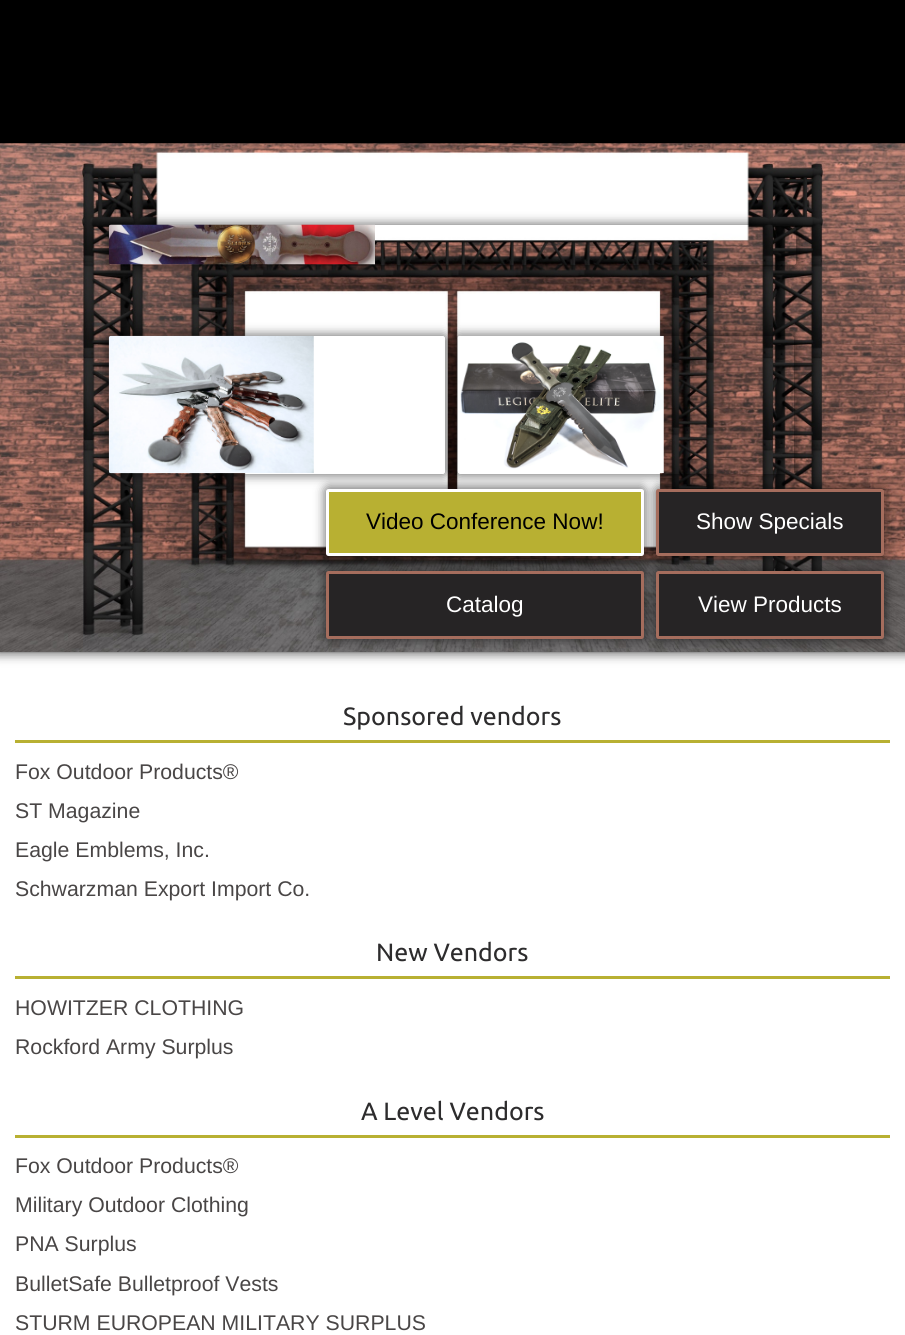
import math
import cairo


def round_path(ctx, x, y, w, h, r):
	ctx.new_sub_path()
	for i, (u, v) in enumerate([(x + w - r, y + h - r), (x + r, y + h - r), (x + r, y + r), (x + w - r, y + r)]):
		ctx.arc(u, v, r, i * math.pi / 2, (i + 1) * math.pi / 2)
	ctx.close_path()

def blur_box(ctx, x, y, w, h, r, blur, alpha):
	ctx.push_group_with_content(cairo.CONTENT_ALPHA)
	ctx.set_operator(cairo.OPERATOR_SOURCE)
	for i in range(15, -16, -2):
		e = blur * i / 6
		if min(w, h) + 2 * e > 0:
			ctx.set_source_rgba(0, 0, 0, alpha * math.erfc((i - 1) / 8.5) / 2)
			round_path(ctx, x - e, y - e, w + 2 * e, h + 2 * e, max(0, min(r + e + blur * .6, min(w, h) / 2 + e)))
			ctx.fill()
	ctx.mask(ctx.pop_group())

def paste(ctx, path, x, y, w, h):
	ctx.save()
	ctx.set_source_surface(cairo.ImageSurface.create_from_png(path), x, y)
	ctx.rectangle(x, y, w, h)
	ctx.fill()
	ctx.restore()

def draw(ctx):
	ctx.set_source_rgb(1, 1, 1)
	ctx.paint()
	paste(ctx, 'media/1.png', 0, 652, 905, 1)
	ctx.set_source_rgb(0, 0, 0)
	ctx.rectangle(0, 0, 905, 144)
	ctx.fill()
	ctx.set_source_rgb(0, 0, 0)
	blur_box(ctx, -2, 141, 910, 514, 0, 5, 0.5)
	paste(ctx, 'media/2.png', 0, 143, 905, 509)
	ctx.save()
	ctx.set_fill_rule(cairo.FILL_RULE_EVEN_ODD)
	ctx.new_path()
	ctx.move_to(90, 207)
	ctx.line_to(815, 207)
	ctx.line_to(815, 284)
	ctx.line_to(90, 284)
	ctx.close_path()
	ctx.move_to(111.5, 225)
	ctx.line_to(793.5, 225)
	ctx.curve_to(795, 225, 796, 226, 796, 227.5)
	ctx.line_to(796, 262.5)
	ctx.curve_to(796, 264, 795, 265, 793.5, 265)
	ctx.line_to(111.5, 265)
	ctx.curve_to(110, 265, 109, 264, 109, 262.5)
	ctx.line_to(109, 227.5)
	ctx.curve_to(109, 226, 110, 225, 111.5, 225)
	ctx.close_path()
	ctx.clip()
	blur_box(ctx, 106, 223, 693, 45, 5, 5, 0.5)
	ctx.restore()
	paste(ctx, 'media/3.png', 108, 224, 267, 41)
	ctx.save()
	ctx.set_fill_rule(cairo.FILL_RULE_EVEN_ODD)
	ctx.new_path()
	ctx.move_to(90, 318)
	ctx.line_to(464, 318)
	ctx.line_to(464, 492)
	ctx.line_to(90, 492)
	ctx.close_path()
	ctx.move_to(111.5, 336)
	ctx.line_to(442.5, 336)
	ctx.curve_to(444, 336, 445, 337, 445, 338.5)
	ctx.line_to(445, 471.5)
	ctx.curve_to(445, 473, 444, 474, 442.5, 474)
	ctx.line_to(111.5, 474)
	ctx.curve_to(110, 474, 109, 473, 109, 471.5)
	ctx.line_to(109, 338.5)
	ctx.curve_to(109, 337, 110, 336, 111.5, 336)
	ctx.close_path()
	ctx.clip()
	blur_box(ctx, 106, 334, 342, 142, 5, 5, 0.5)
	ctx.restore()
	paste(ctx, 'media/4.png', 108, 335, 206, 139)
	ctx.save()
	ctx.set_fill_rule(cairo.FILL_RULE_EVEN_ODD)
	ctx.new_path()
	ctx.move_to(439, 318)
	ctx.line_to(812, 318)
	ctx.line_to(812, 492)
	ctx.line_to(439, 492)
	ctx.close_path()
	ctx.move_to(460.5, 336)
	ctx.line_to(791.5, 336)
	ctx.curve_to(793, 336, 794, 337, 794, 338.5)
	ctx.line_to(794, 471.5)
	ctx.curve_to(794, 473, 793, 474, 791.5, 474)
	ctx.line_to(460.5, 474)
	ctx.curve_to(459, 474, 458, 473, 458, 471.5)
	ctx.line_to(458, 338.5)
	ctx.curve_to(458, 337, 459, 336, 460.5, 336)
	ctx.close_path()
	ctx.clip()
	blur_box(ctx, 455, 334, 341, 142, 5, 5, 0.5)
	ctx.restore()
	paste(ctx, 'media/5.png', 457, 335, 207, 139)
	blur_box(ctx, 324, 486, 322, 73, 5, 5, 0.5)
	ctx.set_source_rgb(0.722, 0.69, 0.196)
	round_path(ctx, 327.5, 490.5, 315, 64, 1)
	ctx.fill_preserve()
	ctx.set_source_rgb(1, 1, 1)
	ctx.set_line_width(3)
	ctx.stroke()
	ctx.select_font_face('Liberation Sans')
	ctx.set_font_size(22.5)
	ctx.set_source_rgb(0, 0, 0)
	ctx.move_to(366, 529)
	ctx.show_text('Video Conference Now!')
	ctx.set_source_rgb(0, 0, 0)
	blur_box(ctx, 654, 486, 232, 73, 5, 5, 0.5)
	ctx.set_source_rgb(0.149, 0.141, 0.145)
	round_path(ctx, 657.5, 490.5, 225, 64, 1)
	ctx.fill_preserve()
	ctx.set_source_rgb(0.647, 0.427, 0.365)
	ctx.stroke()
	ctx.set_source_rgb(1, 1, 1)
	ctx.move_to(696, 529)
	ctx.show_text('Show Specials')
	ctx.set_source_rgb(0, 0, 0)
	blur_box(ctx, 324, 569, 322, 72, 5, 5, 0.5)
	ctx.set_source_rgb(0.149, 0.141, 0.145)
	round_path(ctx, 327.5, 572.5, 315, 65, 1)
	ctx.fill_preserve()
	ctx.set_source_rgb(0.647, 0.427, 0.365)
	ctx.stroke()
	ctx.set_source_rgb(1, 1, 1)
	ctx.move_to(446, 612)
	ctx.show_text('Catalog')
	ctx.set_source_rgb(0, 0, 0)
	blur_box(ctx, 654, 569, 232, 72, 5, 5, 0.5)
	ctx.set_source_rgb(0.149, 0.141, 0.145)
	round_path(ctx, 657.5, 572.5, 225, 65, 1)
	ctx.fill_preserve()
	ctx.set_source_rgb(0.647, 0.427, 0.365)
	ctx.stroke()
	ctx.set_source_rgb(1, 1, 1)
	ctx.move_to(698, 612)
	ctx.show_text('View Products')
	ctx.set_source_rgb(0.722, 0.69, 0.196)
	ctx.rectangle(15, 740, 875, 3)
	ctx.fill()
	ctx.select_font_face('Ubuntu')
	ctx.set_font_size(25)
	ctx.set_source_rgb(0.176, 0.173, 0.176)
	ctx.move_to(343, 725)
	ctx.show_text('Sponsored vendors')
	ctx.select_font_face('Liberation Sans')
	ctx.set_font_size(21.25)
	ctx.set_source_rgb(0.286, 0.275, 0.275)
	for x, y, s in [
		(15, 779, 'Fox Outdoor Products®'),
		(15, 818, 'ST Magazine'),
		(15, 857, 'Eagle Emblems, Inc.'),
		(15, 896, 'Schwarzman Export Import Co.'),
	]:
		ctx.move_to(x, y)
		ctx.show_text(s)
	ctx.set_source_rgb(0.722, 0.69, 0.196)
	ctx.rectangle(15, 976, 875, 3)
	ctx.fill()
	ctx.select_font_face('Ubuntu')
	ctx.set_font_size(25)
	ctx.set_source_rgb(0.176, 0.173, 0.176)
	ctx.move_to(376, 961)
	ctx.show_text('New Vendors')
	ctx.select_font_face('Liberation Sans')
	ctx.set_font_size(21.25)
	ctx.set_source_rgb(0.286, 0.275, 0.275)
	ctx.move_to(15, 1015)
	ctx.show_text('HOWITZER CLOTHING')
	ctx.move_to(15, 1054)
	ctx.show_text('Rockford Army Surplus')
	ctx.set_source_rgb(0.722, 0.69, 0.196)
	ctx.rectangle(15, 1135, 875, 3)
	ctx.fill()
	ctx.select_font_face('Ubuntu')
	ctx.set_font_size(25)
	ctx.set_source_rgb(0.176, 0.173, 0.176)
	ctx.move_to(361, 1120)
	ctx.show_text('A Level Vendors')
	ctx.select_font_face('Liberation Sans')
	ctx.set_font_size(21.25)
	ctx.set_source_rgb(0.286, 0.275, 0.275)
	for x, y, s in [
		(15, 1173, 'Fox Outdoor Products®'),
		(15, 1212, 'Military Outdoor Clothing'),
		(15, 1251, 'PNA Surplus'),
		(15, 1291, 'BulletSafe Bulletproof Vests'),
		(15, 1330, 'STURM EUROPEAN MILITARY SURPLUS'),
	]:
		ctx.move_to(x, y)
		ctx.show_text(s)


surface = cairo.ImageSurface(cairo.FORMAT_RGB24, 905, 1335)
ctx = cairo.Context(surface)
options = cairo.FontOptions()
options.set_hint_metrics(cairo.HINT_METRICS_OFF)
options.set_hint_style(cairo.HINT_STYLE_NONE)
ctx.set_font_options(options)
ctx.set_miter_limit(4)
draw(ctx)
surface.write_to_png('image.png')
